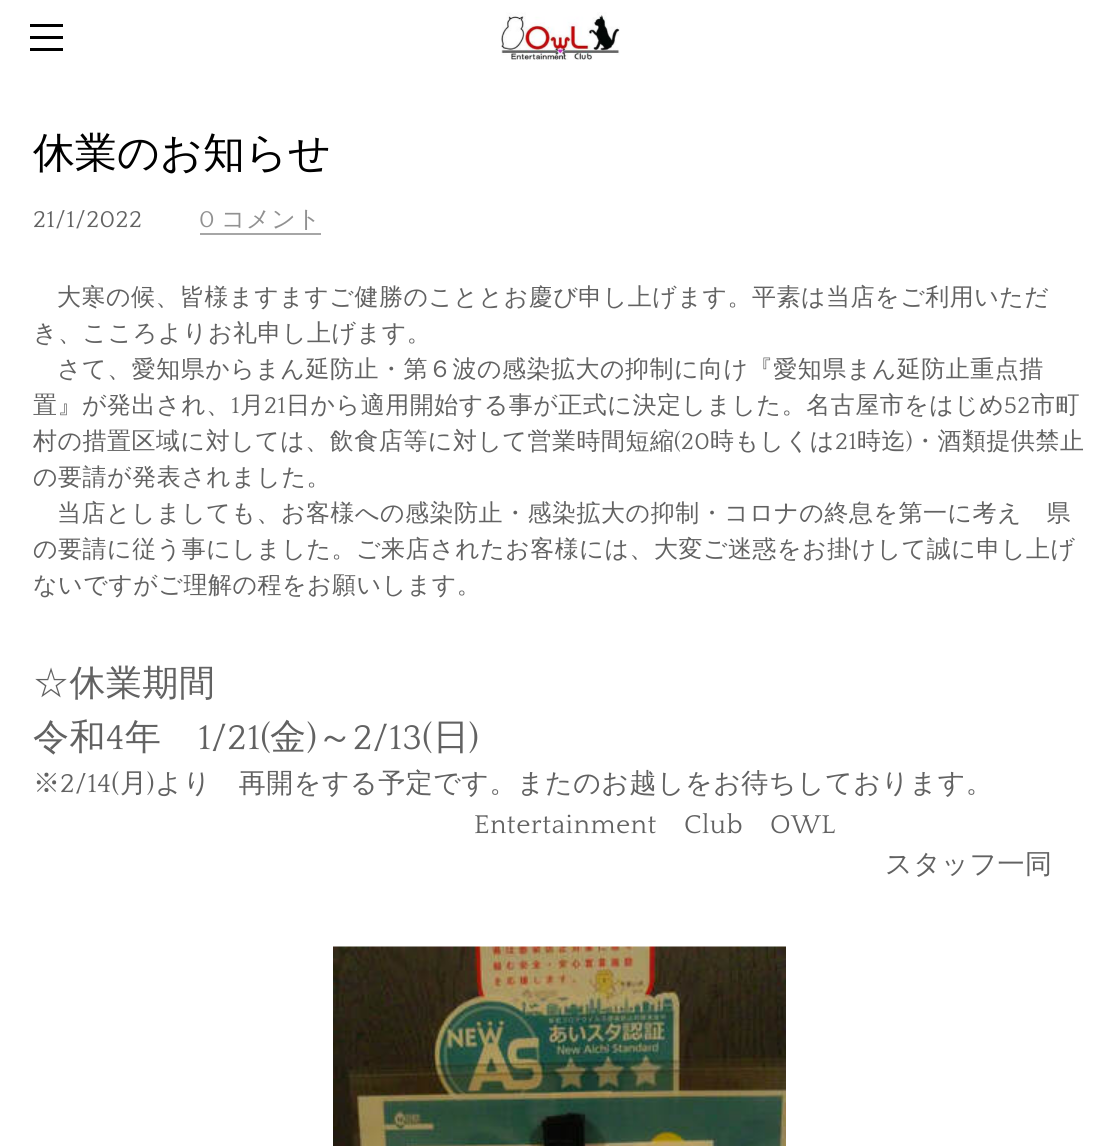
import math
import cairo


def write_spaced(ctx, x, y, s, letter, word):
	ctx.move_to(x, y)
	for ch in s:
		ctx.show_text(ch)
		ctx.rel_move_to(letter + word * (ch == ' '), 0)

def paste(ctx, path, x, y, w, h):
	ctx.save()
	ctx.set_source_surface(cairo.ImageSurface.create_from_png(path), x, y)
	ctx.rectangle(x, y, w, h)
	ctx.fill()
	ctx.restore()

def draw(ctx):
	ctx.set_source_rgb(1, 1, 1)
	ctx.paint()
	ctx.set_source_rgb(0, 0, 0)
	ctx.rectangle(30, 36, 33, 3)
	ctx.rectangle(30, 24, 33, 3)
	ctx.rectangle(30, 48, 33, 3)
	ctx.fill()
	paste(ctx, 'media/1.png', 501, 12, 119, 48)
	ctx.select_font_face('WenQuanYi Zen Hei Medium')
	ctx.set_font_size(42)
	ctx.move_to(33, 167)
	ctx.show_text('休業のお知らせ')
	ctx.select_font_face('Quattrocento')
	ctx.set_font_size(24)
	ctx.set_source_rgb(0.384, 0.384, 0.384)
	write_spaced(ctx, 33, 227, '21/1/2022', 0.5, 0)
	ctx.set_source_rgb(0.569, 0.569, 0.569)
	write_spaced(ctx, 199, 227, '0', 0.5, 0)
	ctx.set_source_rgb(0.651, 0.651, 0.651)
	ctx.rectangle(200, 233, 121, 2)
	ctx.fill()
	ctx.select_font_face('WenQuanYi Zen Hei Medium')
	ctx.set_source_rgb(0.569, 0.569, 0.569)
	write_spaced(ctx, 221, 227, 'コメント', 0.5, 0)
	ctx.set_source_rgb(0.384, 0.384, 0.384)
	for x, y, s in [
		(57, 305, '大寒の候、皆様ますますご健勝のこととお慶び申し上げます。平素は当店をご利用いただ'),
		(33, 341, 'き、こころよりお礼申し上げます。'),
		(57, 377, 'さて、愛知県からまん延防止・第６波の感染拡大の抑制に向け『愛知県まん延防止重点措'),
		(33, 413, '置』が発出され、'),
	]:
		write_spaced(ctx, x, y, s, 0.5, 0)
	ctx.select_font_face('Quattrocento')
	write_spaced(ctx, 231, 413, '1', 0.5, 0)
	ctx.select_font_face('WenQuanYi Zen Hei Medium')
	write_spaced(ctx, 240, 413, '月', 0.5, 0)
	ctx.select_font_face('Quattrocento')
	write_spaced(ctx, 264, 413, '21', 0.5, 0)
	ctx.select_font_face('WenQuanYi Zen Hei Medium')
	write_spaced(ctx, 286, 413, '日から適用開始する事が正式に決定しました。名古屋市をはじめ', 0.5, 0)
	ctx.select_font_face('Quattrocento')
	write_spaced(ctx, 1004, 413, '52', 0.5, 0)
	ctx.select_font_face('WenQuanYi Zen Hei Medium')
	write_spaced(ctx, 1031, 413, '市町', 0.5, 0)
	write_spaced(ctx, 33, 449, '村の措置区域に対しては、飲食店等に対して営業時間短縮', 0.5, 0)
	ctx.select_font_face('Quattrocento')
	write_spaced(ctx, 674, 449, '(20', 0.5, 0)
	ctx.select_font_face('WenQuanYi Zen Hei Medium')
	write_spaced(ctx, 710, 449, '時もしくは', 0.5, 0)
	ctx.select_font_face('Quattrocento')
	write_spaced(ctx, 835, 449, '21', 0.5, 0)
	ctx.select_font_face('WenQuanYi Zen Hei Medium')
	write_spaced(ctx, 857, 449, '時迄', 0.5, 0)
	ctx.select_font_face('Quattrocento')
	write_spaced(ctx, 906, 449, ')', 0.5, 0)
	ctx.select_font_face('WenQuanYi Zen Hei Medium')
	for x, y, s in [
		(913, 449, '・酒類提供禁止'),
		(33, 485, 'の要請が発表されました。'),
		(57, 521, '当店としましても、お客様への感染防止・感染拡大の抑制・コロナの終息を第一に考え　県'),
		(33, 557, 'の要請に従う事にしました。ご来店されたお客様には、大変ご迷惑をお掛けして誠に申し上げ'),
		(33, 593, 'ないですがご理解の程をお願いします。'),
	]:
		write_spaced(ctx, x, y, s, 0.5, 0)
	ctx.set_font_size(36)
	write_spaced(ctx, 33, 695, '☆休業期間', 0.5, 0)
	write_spaced(ctx, 33, 749, '令和', 0.5, 0)
	ctx.select_font_face('Quattrocento')
	write_spaced(ctx, 106, 749, '4', 0.5, 0)
	ctx.select_font_face('WenQuanYi Zen Hei Medium')
	write_spaced(ctx, 125, 749, '年', 0.5, 0)
	ctx.select_font_face('Quattrocento')
	write_spaced(ctx, 198, 749, '1/21(', 0.5, 0)
	ctx.select_font_face('WenQuanYi Zen Hei Medium')
	write_spaced(ctx, 270, 749, '金', 0.5, 0)
	ctx.select_font_face('Quattrocento')
	write_spaced(ctx, 307, 749, ')', 0.5, 0)
	ctx.select_font_face('WenQuanYi Zen Hei Medium')
	write_spaced(ctx, 317, 749, '～', 0.5, 0)
	ctx.select_font_face('Quattrocento')
	write_spaced(ctx, 353, 749, '2/13(', 0.5, 0)
	ctx.select_font_face('WenQuanYi Zen Hei Medium')
	write_spaced(ctx, 433, 749, '日', 0.5, 0)
	ctx.select_font_face('Quattrocento')
	write_spaced(ctx, 469, 749, ')', 0.5, 0)
	ctx.select_font_face('WenQuanYi Zen Hei Medium')
	ctx.set_font_size(27)
	write_spaced(ctx, 33, 792, '※', 0.5, 0)
	ctx.select_font_face('Quattrocento')
	write_spaced(ctx, 60, 792, '2/14(', 0.5, 0)
	ctx.select_font_face('WenQuanYi Zen Hei Medium')
	write_spaced(ctx, 120, 792, '月', 0.5, 0)
	ctx.select_font_face('Quattrocento')
	write_spaced(ctx, 147, 792, ')', 0.5, 0)
	ctx.select_font_face('WenQuanYi Zen Hei Medium')
	write_spaced(ctx, 155, 792, 'より　再開をする予定です。またのお越しをお待ちしております。', 0.5, 0)
	ctx.select_font_face('Quattrocento')
	for x, y, s in [
		(474, 833, 'Entertainment'),
		(684, 833, 'Club'),
		(770, 833, 'OWL'),
	]:
		write_spaced(ctx, x, y, s, 0.5, 0)
	ctx.select_font_face('WenQuanYi Zen Hei Medium')
	write_spaced(ctx, 885, 873, 'スタッフ一同', 0.5, 0)
	paste(ctx, 'media/2.png', 333, 946, 453, 200)


surface = cairo.ImageSurface(cairo.FORMAT_RGB24, 1119, 1146)
ctx = cairo.Context(surface)
options = cairo.FontOptions()
options.set_hint_metrics(cairo.HINT_METRICS_OFF)
options.set_hint_style(cairo.HINT_STYLE_NONE)
ctx.set_font_options(options)
ctx.set_miter_limit(4)
draw(ctx)
surface.write_to_png('image.png')
